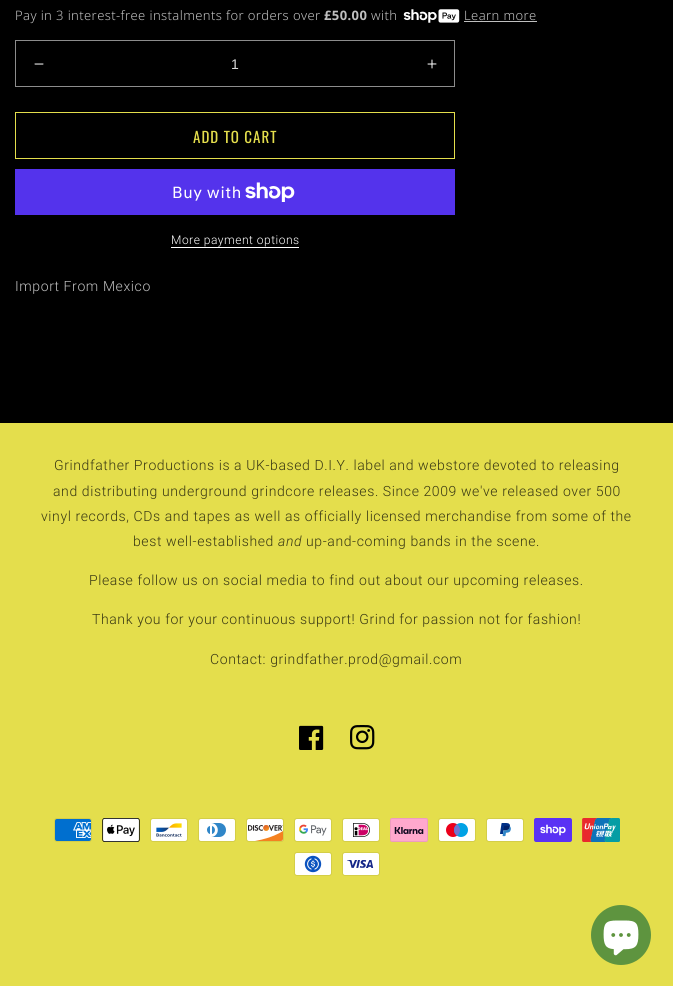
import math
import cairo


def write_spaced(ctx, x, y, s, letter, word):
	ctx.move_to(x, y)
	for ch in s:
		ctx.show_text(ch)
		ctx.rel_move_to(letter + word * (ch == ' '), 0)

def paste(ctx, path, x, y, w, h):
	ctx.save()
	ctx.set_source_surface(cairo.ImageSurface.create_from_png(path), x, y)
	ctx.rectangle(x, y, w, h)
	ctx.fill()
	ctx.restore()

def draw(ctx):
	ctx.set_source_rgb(0, 0, 0)
	ctx.paint()
	ctx.select_font_face('Noto Sans Light')
	ctx.set_font_size(13)
	ctx.set_source_rgb(0.749, 0.749, 0.749)
	write_spaced(ctx, 15, 20, 'Pay in 3 interest-free instalments for orders over', 0.4, 0)
	ctx.select_font_face('Noto Sans', cairo.FONT_SLANT_NORMAL, cairo.FONT_WEIGHT_BOLD)
	write_spaced(ctx, 324, 20, '£50.00', 0.4, 0)
	ctx.select_font_face('Noto Sans Light')
	write_spaced(ctx, 371, 20, 'with', 0.4, 0)
	paste(ctx, 'media/1.png', 403, 9, 57, 14)
	write_spaced(ctx, 464, 20, 'Learn more', 0.4, 0)
	ctx.rectangle(464, 21, 73, 1)
	ctx.fill()
	paste(ctx, 'media/2.png', 34, 63, 10, 2)
	paste(ctx, 'media/3.png', 427, 59, 10, 10)
	ctx.rectangle(15.5, 40.5, 439, 46)
	ctx.set_source_rgb(0.549, 0.549, 0.549)
	ctx.set_line_width(1)
	ctx.stroke()
	ctx.select_font_face('Liberation Sans')
	ctx.set_font_size(14)
	ctx.set_source_rgb(0.851, 0.851, 0.851)
	ctx.move_to(231, 69)
	ctx.show_text('1')
	ctx.rectangle(15.5, 112.5, 439, 46)
	ctx.set_source_rgb(0.894, 0.871, 0.298)
	ctx.stroke()
	ctx.select_font_face('Oswald')
	ctx.set_font_size(15)
	write_spaced(ctx, 193, 143, 'ADD TO CART', 1, 0)
	ctx.set_source_rgb(0.329, 0.2, 0.922)
	ctx.rectangle(15, 169, 440, 46)
	ctx.fill()
	ctx.select_font_face('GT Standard')
	ctx.set_font_size(16)
	ctx.set_source_rgb(1, 1, 1)
	write_spaced(ctx, 172, 198, 'Buy with', 0.6, 0)
	paste(ctx, 'media/4.png', 245, 182, 50, 20)
	ctx.select_font_face('Roboto Light')
	ctx.set_font_size(12)
	write_spaced(ctx, 171, 244, 'More payment options', 0.5, 0)
	ctx.rectangle(171, 247, 128, 1)
	ctx.fill()
	ctx.set_font_size(14)
	ctx.set_source_rgb(0.749, 0.749, 0.749)
	write_spaced(ctx, 15, 291, 'Import From Mexico', 0.6, 0)
	ctx.set_source_rgb(0.894, 0.871, 0.298)
	ctx.rectangle(0, 423, 673, 563)
	ctx.fill()
	ctx.set_source_rgb(0.224, 0.22, 0.075)
	for x, y, s in [
		(54, 470, 'Grindfather Productions is a UK-based D.I.Y. label and webstore devoted to releasing'),
		(53, 496, 'and distributing underground grindcore releases. Since 2009 we\'ve released over 500'),
		(41, 521, 'vinyl records, CDs and tapes as well as officially licensed merchandise from some of the'),
		(133, 546, 'best well-established'),
	]:
		write_spaced(ctx, x, y, s, 0.6, 0)
	ctx.select_font_face('Roboto Light', cairo.FONT_SLANT_ITALIC)
	write_spaced(ctx, 278, 546, 'and', 0.6, 0)
	ctx.select_font_face('Roboto Light')
	for x, y, s in [
		(306, 546, 'up-and-coming bands in the scene.'),
		(89, 585, 'Please follow us on social media to find out about our upcoming releases.'),
		(92, 624, 'Thank you for your continuous support! Grind for passion not for fashion!'),
		(210, 664, 'Contact: grindfather.prod@gmail.com'),
	]:
		write_spaced(ctx, x, y, s, 0.6, 0)
	paste(ctx, 'media/5.png', 299, 725, 25, 25)
	paste(ctx, 'media/6.png', 350, 725, 25, 25)
	paste(ctx, 'media/7.png', 54, 818, 38, 24)
	paste(ctx, 'media/8.png', 102, 818, 38, 24)
	paste(ctx, 'media/9.png', 150, 818, 38, 24)
	paste(ctx, 'media/10.png', 198, 818, 38, 24)
	paste(ctx, 'media/11.png', 246, 818, 38, 24)
	paste(ctx, 'media/12.png', 294, 818, 38, 24)
	paste(ctx, 'media/13.png', 342, 818, 38, 24)
	paste(ctx, 'media/14.png', 390, 818, 38, 24)
	paste(ctx, 'media/15.png', 438, 818, 38, 24)
	paste(ctx, 'media/16.png', 486, 818, 38, 24)
	paste(ctx, 'media/17.png', 534, 818, 38, 24)
	paste(ctx, 'media/18.png', 582, 818, 38, 24)
	paste(ctx, 'media/19.png', 294, 852, 38, 24)
	paste(ctx, 'media/20.png', 342, 852, 38, 24)
	ctx.set_source_rgb(0.369, 0.58, 0.247)
	ctx.arc(621, 935, 30, 0, 2 * math.pi)
	ctx.fill()
	paste(ctx, 'media/21.png', 603, 920, 36, 36)


surface = cairo.ImageSurface(cairo.FORMAT_RGB24, 673, 986)
ctx = cairo.Context(surface)
options = cairo.FontOptions()
options.set_hint_metrics(cairo.HINT_METRICS_OFF)
options.set_hint_style(cairo.HINT_STYLE_NONE)
ctx.set_font_options(options)
ctx.set_miter_limit(4)
draw(ctx)
surface.write_to_png('image.png')
